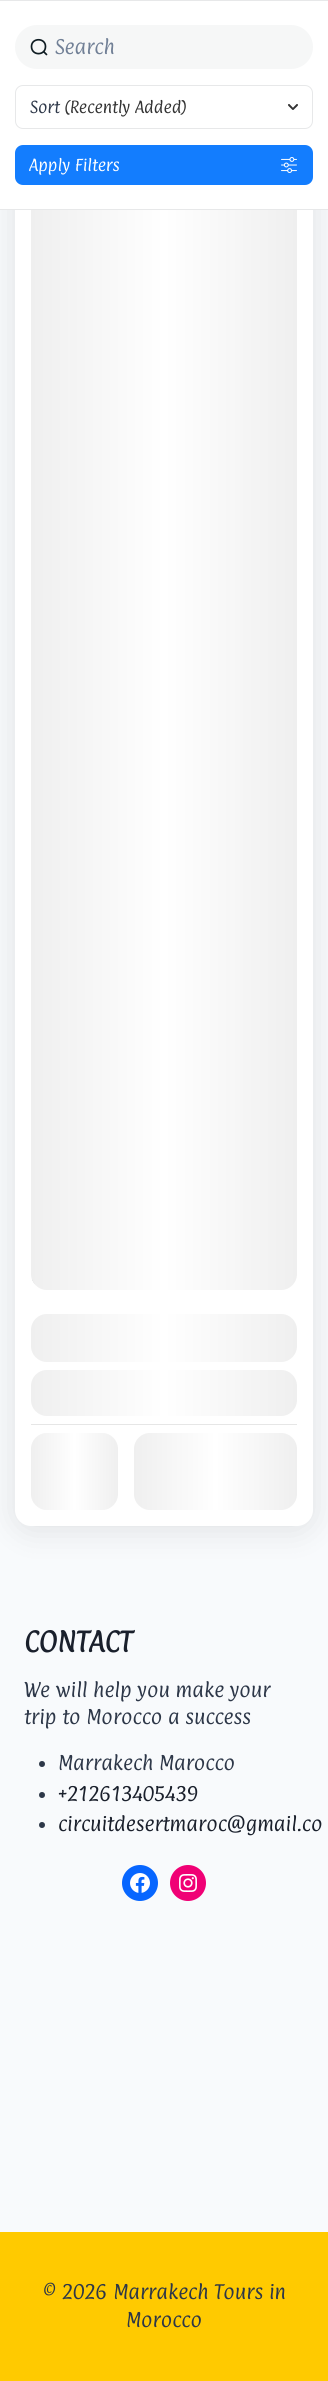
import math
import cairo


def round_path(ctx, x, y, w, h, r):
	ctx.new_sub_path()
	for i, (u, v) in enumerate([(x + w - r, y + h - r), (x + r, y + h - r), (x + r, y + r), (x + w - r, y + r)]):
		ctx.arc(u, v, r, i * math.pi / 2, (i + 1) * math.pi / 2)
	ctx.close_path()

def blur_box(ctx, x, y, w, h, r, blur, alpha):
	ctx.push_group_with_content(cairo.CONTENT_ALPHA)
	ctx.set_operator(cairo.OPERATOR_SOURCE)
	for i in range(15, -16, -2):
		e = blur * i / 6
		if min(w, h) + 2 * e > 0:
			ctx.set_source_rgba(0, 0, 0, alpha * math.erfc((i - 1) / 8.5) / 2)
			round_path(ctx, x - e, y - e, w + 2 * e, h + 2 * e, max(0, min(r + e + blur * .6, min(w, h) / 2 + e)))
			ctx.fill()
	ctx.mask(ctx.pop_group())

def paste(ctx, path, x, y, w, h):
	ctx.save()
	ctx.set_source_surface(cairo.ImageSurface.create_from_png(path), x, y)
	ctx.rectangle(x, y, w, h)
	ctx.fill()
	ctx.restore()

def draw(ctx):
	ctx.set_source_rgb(0.969, 0.98, 0.988)
	ctx.paint()
	ctx.set_source_rgb(0, 0, 0)
	blur_box(ctx, 15, -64, 298, 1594, 16, 16, 0.1)
	ctx.set_source_rgb(1, 1, 1)
	round_path(ctx, 15, -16, 298, 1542, 16)
	ctx.fill()
	paste(ctx, 'media/1.png', 32, 1279, 3, 5)
	ctx.set_source_rgb(0.937, 0.937, 0.937)
	round_path(ctx, 31, 110, 266, 1180, 16)
	ctx.fill()
	gradient = cairo.LinearGradient(31, 700, 297, 700)
	gradient.add_color_stop_rgba(0, 1, 1, 1, 0)
	gradient.add_color_stop_rgba(0.5, 1, 1, 1, 1)
	gradient.add_color_stop_rgba(1, 1, 1, 1, 0)
	ctx.set_source(gradient)
	round_path(ctx, 31, 110, 266, 1180, 16)
	ctx.fill()
	ctx.set_source_rgb(0.937, 0.937, 0.937)
	round_path(ctx, 31, 1314, 266, 48, 16)
	ctx.fill()
	gradient = cairo.LinearGradient(31, 1338, 297, 1338)
	gradient.add_color_stop_rgba(0, 1, 1, 1, 0)
	gradient.add_color_stop_rgba(0.5, 1, 1, 1, 1)
	gradient.add_color_stop_rgba(1, 1, 1, 1, 0)
	ctx.set_source(gradient)
	round_path(ctx, 31, 1314, 266, 48, 16)
	ctx.fill()
	ctx.set_source_rgb(0.937, 0.937, 0.937)
	round_path(ctx, 31, 1370, 266, 46, 16)
	ctx.fill()
	gradient = cairo.LinearGradient(31, 1393, 297, 1393)
	gradient.add_color_stop_rgba(0, 1, 1, 1, 0)
	gradient.add_color_stop_rgba(0.5, 1, 1, 1, 1)
	gradient.add_color_stop_rgba(1, 1, 1, 1, 0)
	ctx.set_source(gradient)
	round_path(ctx, 31, 1370, 266, 46, 16)
	ctx.fill()
	ctx.set_source_rgb(0.902, 0.902, 0.902)
	ctx.rectangle(31, 1424, 266, 1)
	ctx.fill()
	ctx.set_source_rgb(0.937, 0.937, 0.937)
	round_path(ctx, 31, 1433, 87, 77, 16)
	ctx.fill()
	gradient = cairo.LinearGradient(31, 1472, 118, 1472)
	gradient.add_color_stop_rgba(0, 1, 1, 1, 0)
	gradient.add_color_stop_rgba(0.5, 1, 1, 1, 1)
	gradient.add_color_stop_rgba(1, 1, 1, 1, 0)
	ctx.set_source(gradient)
	round_path(ctx, 31, 1433, 87, 77, 16)
	ctx.fill()
	ctx.set_source_rgb(0.937, 0.937, 0.937)
	round_path(ctx, 134, 1433, 163, 77, 16)
	ctx.fill()
	gradient = cairo.LinearGradient(134, 1472, 297, 1472)
	gradient.add_color_stop_rgba(0, 1, 1, 1, 0)
	gradient.add_color_stop_rgba(0.5, 1, 1, 1, 1)
	gradient.add_color_stop_rgba(1, 1, 1, 1, 0)
	ctx.set_source(gradient)
	round_path(ctx, 134, 1433, 163, 77, 16)
	ctx.fill()
	ctx.set_source_rgb(1, 1, 1)
	ctx.rectangle(0, 1, 328, 208)
	ctx.fill()
	ctx.set_source_rgb(0.906, 0.91, 0.914)
	ctx.rectangle(0, 0, 328, 1)
	ctx.rectangle(0, 209, 328, 1)
	ctx.fill()
	ctx.set_source_rgb(0.961, 0.965, 0.965)
	round_path(ctx, 15, 25, 298, 44, 22)
	ctx.fill()
	ctx.new_path()
	ctx.move_to(46.5, 54.5)
	ctx.line_to(43.5, 51.5)
	ctx.move_to(45.5, 46.5)
	ctx.curve_to(45.5, 56, 31.5, 56, 31.5, 46.5)
	ctx.curve_to(31.5, 37.5, 45.5, 37.5, 45.5, 46.5)
	ctx.close_path()
	ctx.set_source_rgb(0.059, 0.114, 0.137)
	ctx.set_line_width(1.7)
	ctx.set_line_cap(cairo.LINE_CAP_ROUND)
	ctx.set_line_join(cairo.LINE_JOIN_ROUND)
	ctx.stroke()
	ctx.select_font_face('Paprika')
	ctx.set_font_size(17)
	ctx.set_source_rgb(0.443, 0.502, 0.588)
	ctx.move_to(55, 54)
	ctx.show_text('Search')
	round_path(ctx, 15.5, 85.5, 297, 43, 7.5)
	ctx.set_source_rgb(0.906, 0.91, 0.914)
	ctx.set_line_width(1)
	ctx.set_line_cap(cairo.LINE_CAP_BUTT)
	ctx.set_line_join(cairo.LINE_JOIN_MITER)
	ctx.stroke()
	ctx.set_font_size(14)
	ctx.set_source_rgb(0.176, 0.216, 0.282)
	ctx.move_to(30, 113)
	ctx.show_text('Sort')
	ctx.set_source_rgb(0.2, 0.2, 0.2)
	ctx.move_to(64, 113)
	ctx.show_text('(Recently Added)')
	paste(ctx, 'media/2.png', 288, 104, 10, 6)
	ctx.set_source_rgb(0.078, 0.49, 0.996)
	round_path(ctx, 15, 145, 298, 40, 8)
	ctx.fill()
	ctx.set_source_rgb(1, 1, 1)
	ctx.move_to(29, 171)
	ctx.show_text('Apply Filters')
	paste(ctx, 'media/3.png', 281, 157, 16, 16)
	ctx.select_font_face('Paprika', cairo.FONT_SLANT_NORMAL, cairo.FONT_WEIGHT_BOLD)
	ctx.set_font_size(24)
	ctx.set_source_rgb(0.102, 0.125, 0.173)
	ctx.move_to(24, 1652)
	ctx.show_text('CONTACT')
	ctx.select_font_face('Paprika')
	ctx.set_font_size(17)
	ctx.set_source_rgb(0.176, 0.216, 0.282)
	ctx.move_to(24, 1697)
	ctx.show_text('We will help you make your')
	ctx.move_to(24, 1724)
	ctx.show_text('trip to Morocco a success')
	ctx.new_path()
	ctx.arc(42, 1764, 3, 0, 2 * math.pi)
	ctx.fill()
	ctx.move_to(58, 1770)
	ctx.show_text('Marrakech Marocco')
	ctx.new_path()
	ctx.arc(42, 1795, 3, 0, 2 * math.pi)
	ctx.fill()
	ctx.set_source_rgb(0.102, 0.125, 0.173)
	ctx.move_to(58, 1801)
	ctx.show_text('+212613405439')
	ctx.set_source_rgb(0.176, 0.216, 0.282)
	ctx.new_path()
	ctx.arc(42, 1825, 3, 0, 2 * math.pi)
	ctx.fill()
	ctx.set_source_rgb(0.102, 0.125, 0.173)
	ctx.move_to(58, 1831)
	ctx.show_text('circuitdesertmaroc@gmail.co')
	ctx.set_source_rgb(0.031, 0.4, 1)
	ctx.new_path()
	ctx.arc(140, 1883, 18, 0, 2 * math.pi)
	ctx.fill()
	paste(ctx, 'media/4.png', 130, 1873, 20, 20)
	ctx.set_source_rgb(0.941, 0, 0.459)
	ctx.arc(188, 1883, 18, 0, 2 * math.pi)
	ctx.fill()
	paste(ctx, 'media/5.png', 179, 1874, 18, 18)
	ctx.set_source_rgb(1, 0.792, 0)
	ctx.rectangle(0, 2232, 328, 149)
	ctx.fill()
	ctx.set_source_rgb(0.176, 0.216, 0.282)
	ctx.move_to(43, 2299)
	ctx.show_text('© 2026 Marrakech Tours in')
	ctx.move_to(126, 2327)
	ctx.show_text('Morocco')


surface = cairo.ImageSurface(cairo.FORMAT_RGB24, 328, 2381)
ctx = cairo.Context(surface)
options = cairo.FontOptions()
options.set_hint_metrics(cairo.HINT_METRICS_OFF)
options.set_hint_style(cairo.HINT_STYLE_NONE)
ctx.set_font_options(options)
ctx.set_miter_limit(4)
draw(ctx)
surface.write_to_png('image.png')
